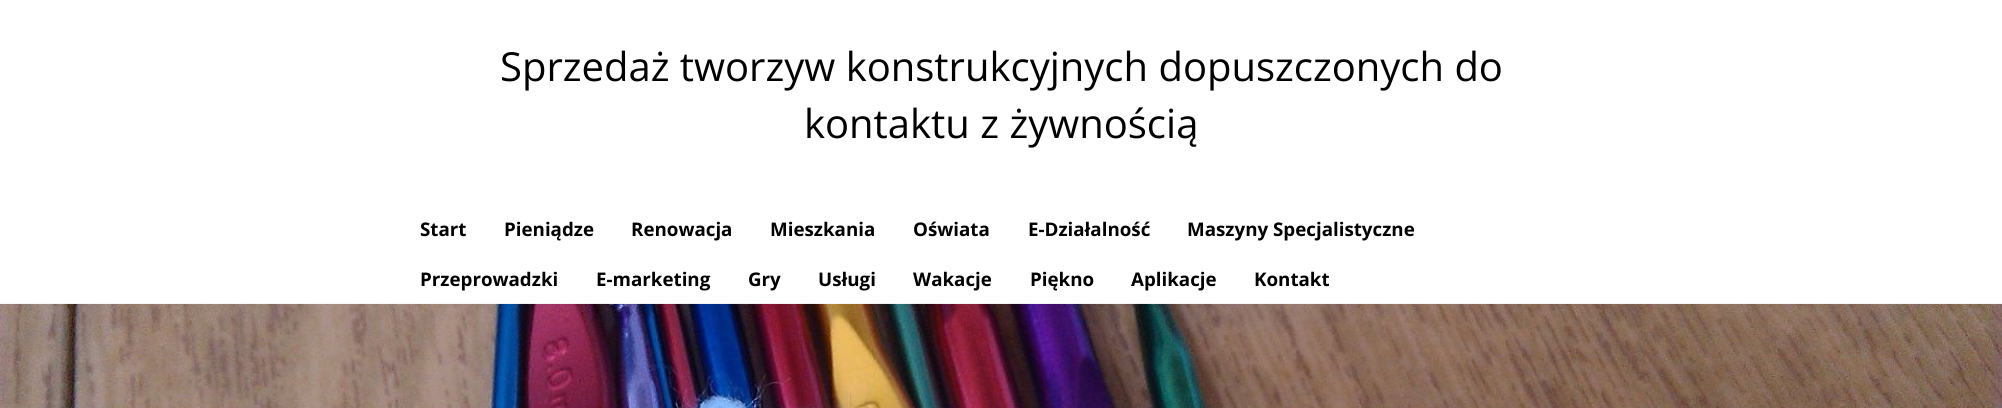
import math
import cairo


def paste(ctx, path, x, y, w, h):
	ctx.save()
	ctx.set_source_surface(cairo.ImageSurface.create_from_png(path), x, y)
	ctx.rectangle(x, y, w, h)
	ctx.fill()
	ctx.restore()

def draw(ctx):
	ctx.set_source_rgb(1, 1, 1)
	ctx.paint()
	ctx.select_font_face('Open Sans')
	ctx.set_font_size(40)
	ctx.set_source_rgb(0, 0, 0)
	ctx.move_to(500, 81)
	ctx.show_text('Sprzedaż tworzyw konstrukcyjnych dopuszczonych do')
	ctx.move_to(804, 138)
	ctx.show_text('kontaktu z żywnością')
	ctx.select_font_face('Open Sans', cairo.FONT_SLANT_NORMAL, cairo.FONT_WEIGHT_BOLD)
	ctx.set_font_size(18.75)
	for x, y, s in [
		(420, 236, 'Start'),
		(504, 236, 'Pieniądze'),
		(631, 236, 'Renowacja'),
		(770, 236, 'Mieszkania'),
		(913, 236, 'Oświata'),
		(1028, 236, 'E-Działalność'),
		(1187, 236, 'Maszyny Specjalistyczne'),
		(420, 286, 'Przeprowadzki'),
		(596, 286, 'E-marketing'),
		(748, 286, 'Gry'),
		(818, 286, 'Usługi'),
		(913, 286, 'Wakacje'),
		(1030, 286, 'Piękno'),
		(1131, 286, 'Aplikacje'),
		(1254, 286, 'Kontakt'),
	]:
		ctx.move_to(x, y)
		ctx.show_text(s)
	paste(ctx, 'media/1.png', 0, 303, 2002, 105)


surface = cairo.ImageSurface(cairo.FORMAT_RGB24, 2002, 408)
ctx = cairo.Context(surface)
options = cairo.FontOptions()
options.set_hint_metrics(cairo.HINT_METRICS_OFF)
options.set_hint_style(cairo.HINT_STYLE_NONE)
ctx.set_font_options(options)
ctx.set_miter_limit(4)
draw(ctx)
surface.write_to_png('image.png')
